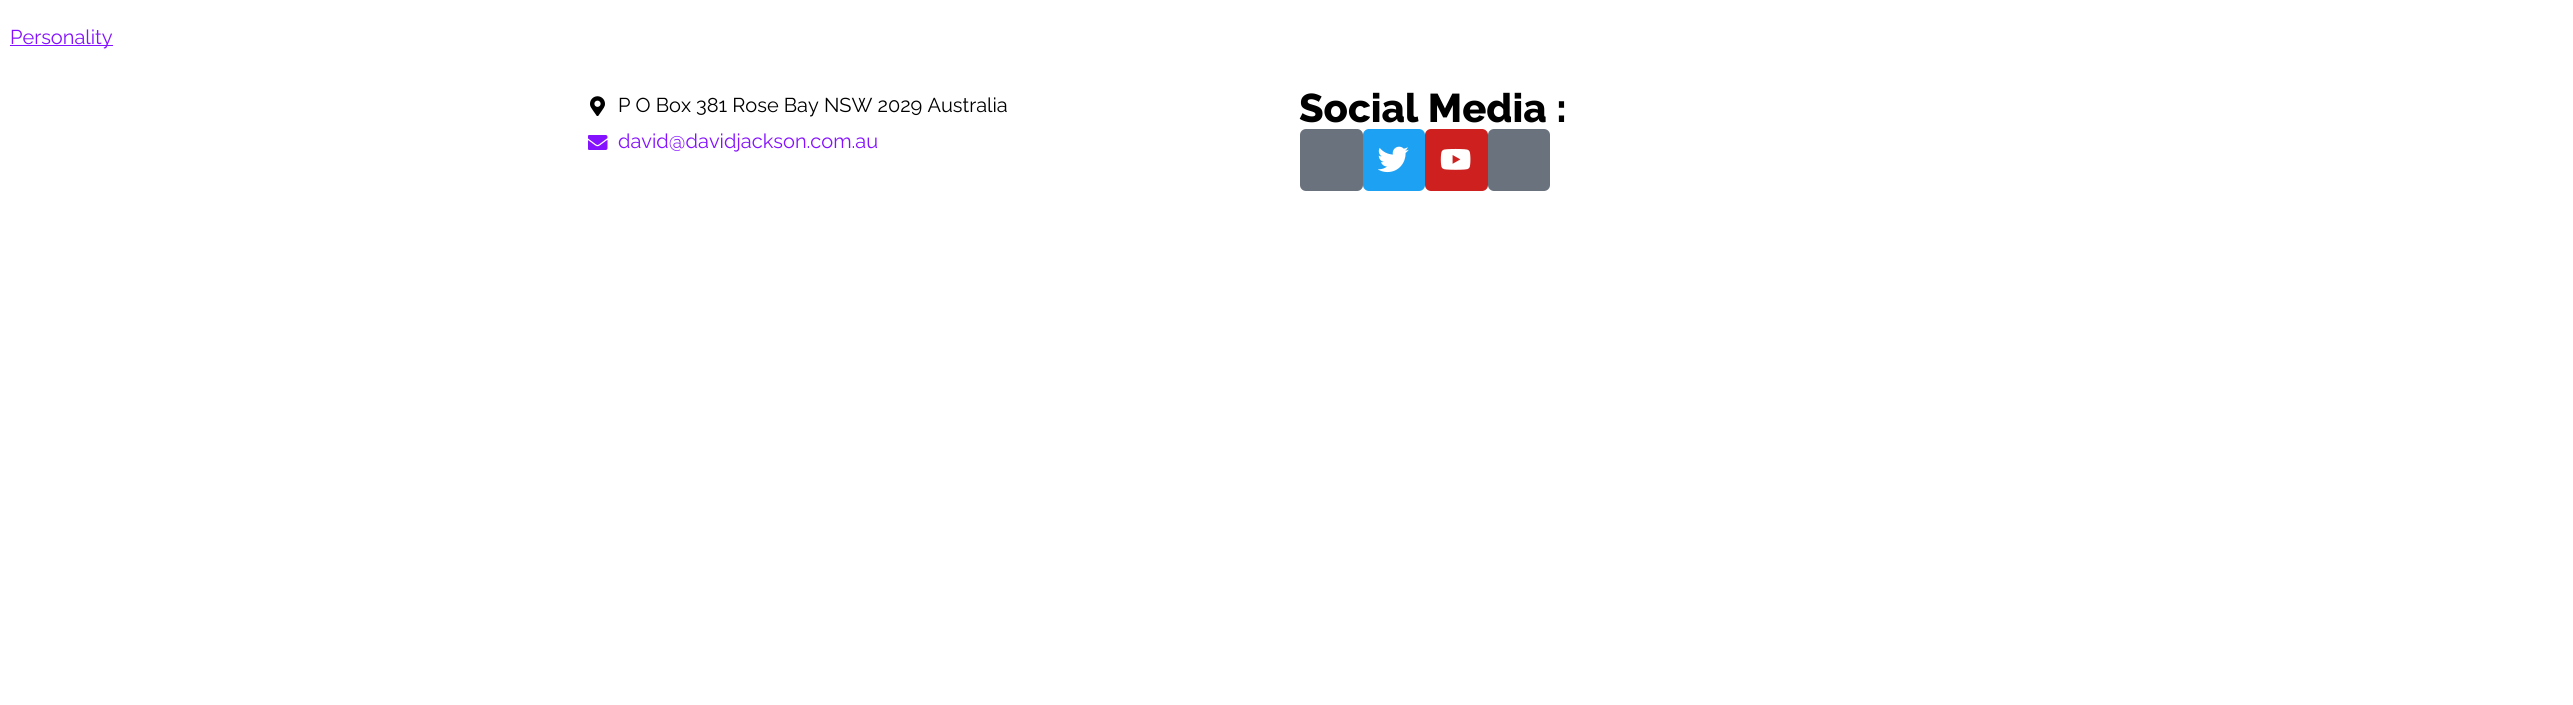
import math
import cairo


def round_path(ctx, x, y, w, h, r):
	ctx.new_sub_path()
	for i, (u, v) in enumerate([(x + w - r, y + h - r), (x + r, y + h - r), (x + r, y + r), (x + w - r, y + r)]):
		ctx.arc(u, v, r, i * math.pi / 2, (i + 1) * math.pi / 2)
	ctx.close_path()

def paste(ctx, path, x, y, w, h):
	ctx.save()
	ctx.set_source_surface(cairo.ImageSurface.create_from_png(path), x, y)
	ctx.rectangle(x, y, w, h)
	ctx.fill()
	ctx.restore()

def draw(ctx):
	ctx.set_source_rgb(1, 1, 1)
	ctx.paint()
	ctx.set_source_rgb(0.522, 0.071, 1)
	ctx.rectangle(10, 45, 103, 1)
	ctx.fill()
	ctx.select_font_face('Raleway')
	ctx.set_font_size(20)
	ctx.move_to(10, 44)
	ctx.show_text('Personality')
	paste(ctx, 'media/1.png', 590, 96, 15, 20)
	ctx.set_source_rgb(0, 0, 0)
	ctx.move_to(618, 112)
	ctx.show_text('P O Box 381 Rose Bay NSW 2029 Australia')
	paste(ctx, 'media/2.png', 588, 135, 20, 15)
	ctx.set_source_rgb(0.522, 0.071, 1)
	ctx.move_to(618, 148)
	ctx.show_text('david@davidjackson.com.au')
	ctx.select_font_face('Raleway ExtraBold')
	ctx.set_font_size(40)
	ctx.set_source_rgb(0, 0, 0)
	ctx.move_to(1299, 122)
	ctx.show_text('Social Media :')
	ctx.set_source_rgb(0.412, 0.447, 0.49)
	round_path(ctx, 1300, 129, 63, 62, 6)
	ctx.fill()
	ctx.set_source_rgb(0.114, 0.631, 0.949)
	round_path(ctx, 1363, 129, 62, 62, 6)
	ctx.fill()
	paste(ctx, 'media/3.png', 1378, 146, 31, 27)
	ctx.set_source_rgb(0.804, 0.125, 0.122)
	round_path(ctx, 1425, 129, 63, 62, 6)
	ctx.fill()
	paste(ctx, 'media/4.png', 1440, 148, 31, 22)
	ctx.set_source_rgb(0.412, 0.447, 0.49)
	round_path(ctx, 1488, 129, 62, 62, 6)
	ctx.fill()


surface = cairo.ImageSurface(cairo.FORMAT_RGB24, 2573, 705)
ctx = cairo.Context(surface)
options = cairo.FontOptions()
options.set_hint_metrics(cairo.HINT_METRICS_OFF)
options.set_hint_style(cairo.HINT_STYLE_NONE)
ctx.set_font_options(options)
ctx.set_miter_limit(4)
draw(ctx)
surface.write_to_png('image.png')
